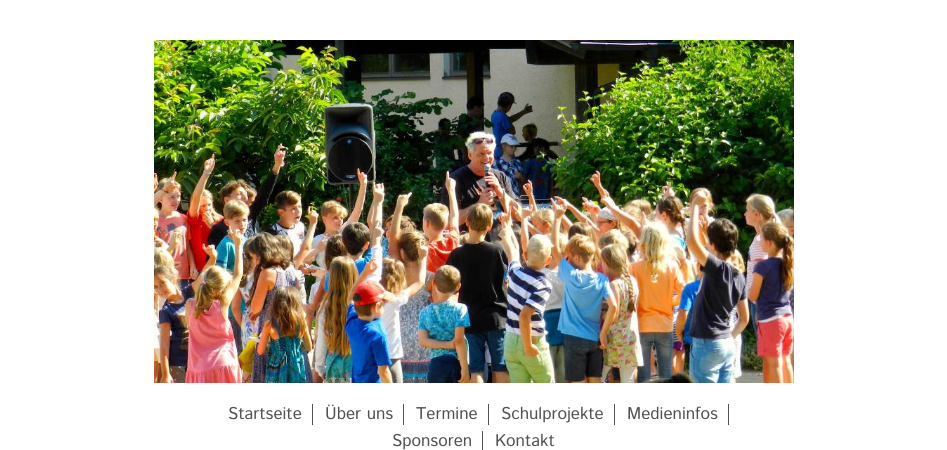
import math
import cairo


def paste(ctx, path, x, y, w, h):
	ctx.save()
	ctx.set_source_surface(cairo.ImageSurface.create_from_png(path), x, y)
	ctx.rectangle(x, y, w, h)
	ctx.fill()
	ctx.restore()

def draw(ctx):
	ctx.set_source_rgb(1, 1, 1)
	ctx.paint()
	paste(ctx, 'media/1.png', 154, 40, 640, 343)
	ctx.set_source_rgb(0.325, 0.325, 0.325)
	ctx.rectangle(312, 404, 1, 21)
	ctx.fill()
	ctx.select_font_face('Istok Web')
	ctx.set_font_size(17)
	ctx.move_to(228, 419)
	ctx.show_text('Startseite')
	ctx.rectangle(403, 404, 1, 21)
	ctx.fill()
	ctx.move_to(325, 419)
	ctx.show_text('Über uns')
	ctx.rectangle(488, 404, 1, 21)
	ctx.fill()
	ctx.move_to(416, 419)
	ctx.show_text('Termine')
	ctx.rectangle(614, 404, 1, 21)
	ctx.fill()
	ctx.move_to(501, 419)
	ctx.show_text('Schulprojekte')
	ctx.rectangle(728, 404, 1, 21)
	ctx.fill()
	ctx.move_to(627, 419)
	ctx.show_text('Medieninfos')
	ctx.rectangle(482, 431, 1, 19)
	ctx.fill()
	ctx.move_to(392, 446)
	ctx.show_text('Sponsoren')
	ctx.move_to(495, 446)
	ctx.show_text('Kontakt')


surface = cairo.ImageSurface(cairo.FORMAT_RGB24, 947, 450)
ctx = cairo.Context(surface)
options = cairo.FontOptions()
options.set_hint_metrics(cairo.HINT_METRICS_OFF)
options.set_hint_style(cairo.HINT_STYLE_NONE)
ctx.set_font_options(options)
ctx.set_miter_limit(4)
draw(ctx)
surface.write_to_png('image.png')
